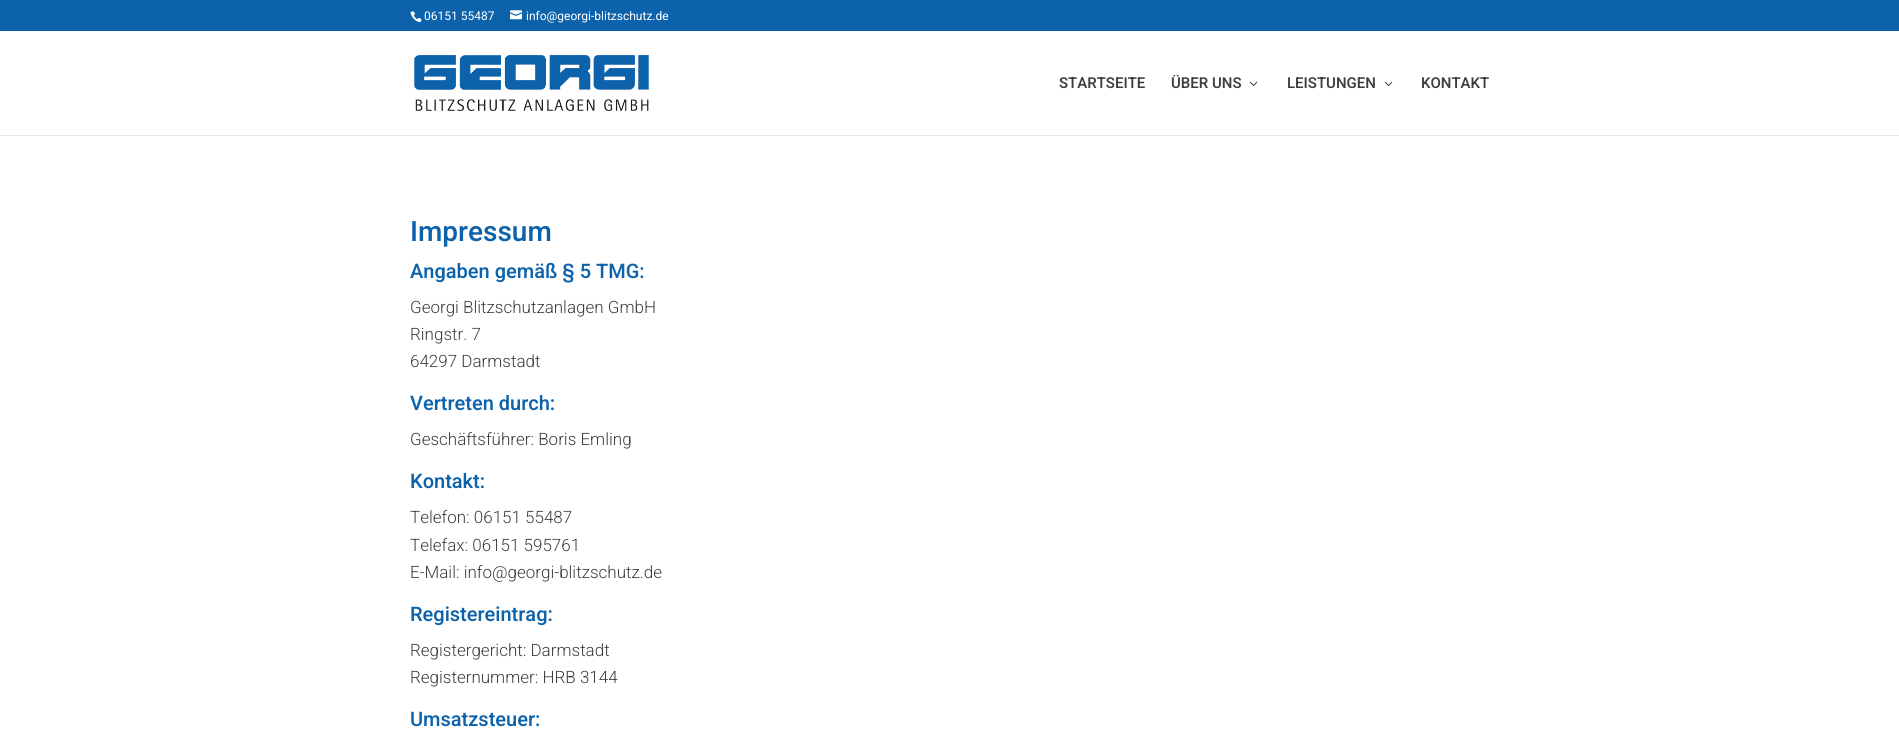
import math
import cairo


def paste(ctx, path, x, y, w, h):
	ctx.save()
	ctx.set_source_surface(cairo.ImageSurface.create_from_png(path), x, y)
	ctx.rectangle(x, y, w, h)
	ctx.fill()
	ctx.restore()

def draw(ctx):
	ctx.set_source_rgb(1, 1, 1)
	ctx.paint()
	ctx.set_source_rgb(0.047, 0.388, 0.671)
	ctx.rectangle(0, 0, 1899, 31)
	ctx.fill()
	paste(ctx, 'media/1.png', 410, 11, 12, 12)
	ctx.select_font_face('Heebo')
	ctx.set_font_size(12)
	ctx.set_source_rgb(1, 1, 1)
	ctx.move_to(424, 20)
	ctx.show_text('06151 55487')
	paste(ctx, 'media/2.png', 510, 10, 12, 10)
	ctx.move_to(526, 20)
	ctx.show_text('info@georgi-blitzschutz.de')
	ctx.set_source_rgb(0.902, 0.902, 0.902)
	ctx.rectangle(0, 135, 1899, 1)
	ctx.fill()
	paste(ctx, 'media/3.png', 414, 55, 235, 56)
	ctx.select_font_face('Heebo Medium')
	ctx.set_font_size(15)
	ctx.set_source_rgb(0.239, 0.239, 0.239)
	ctx.move_to(1059, 88)
	ctx.show_text('STARTSEITE')
	ctx.move_to(1171, 88)
	ctx.show_text('ÜBER UNS')
	paste(ctx, 'media/4.png', 1249, 81, 9, 5)
	ctx.move_to(1287, 88)
	ctx.show_text('LEISTUNGEN')
	paste(ctx, 'media/4.png', 1384, 81, 9, 5)
	ctx.move_to(1421, 88)
	ctx.show_text('KONTAKT')
	ctx.set_font_size(28)
	ctx.set_source_rgb(0.047, 0.388, 0.671)
	ctx.move_to(410, 241)
	ctx.show_text('Impressum')
	ctx.set_font_size(20)
	ctx.move_to(410, 278)
	ctx.show_text('Angaben gemäß § 5 TMG:')
	ctx.select_font_face('Heebo Light')
	ctx.set_font_size(17)
	ctx.set_source_rgb(0.239, 0.239, 0.239)
	for x, y, s in [
		(410, 313, 'Georgi Blitzschutzanlagen GmbH'),
		(410, 340, 'Ringstr. 7'),
		(410, 367, '64297 Darmstadt'),
	]:
		ctx.move_to(x, y)
		ctx.show_text(s)
	ctx.select_font_face('Heebo Medium')
	ctx.set_font_size(20)
	ctx.set_source_rgb(0.047, 0.388, 0.671)
	ctx.move_to(410, 410)
	ctx.show_text('Vertreten durch:')
	ctx.select_font_face('Heebo Light')
	ctx.set_font_size(17)
	ctx.set_source_rgb(0.239, 0.239, 0.239)
	ctx.move_to(410, 445)
	ctx.show_text('Geschäftsführer: Boris Emling')
	ctx.select_font_face('Heebo Medium')
	ctx.set_font_size(20)
	ctx.set_source_rgb(0.047, 0.388, 0.671)
	ctx.move_to(410, 488)
	ctx.show_text('Kontakt:')
	ctx.select_font_face('Heebo Light')
	ctx.set_font_size(17)
	ctx.set_source_rgb(0.239, 0.239, 0.239)
	for x, y, s in [
		(410, 523, 'Telefon: 06151 55487'),
		(410, 551, 'Telefax: 06151 595761'),
		(410, 578, 'E-Mail: info@georgi-blitzschutz.de'),
	]:
		ctx.move_to(x, y)
		ctx.show_text(s)
	ctx.select_font_face('Heebo Medium')
	ctx.set_font_size(20)
	ctx.set_source_rgb(0.047, 0.388, 0.671)
	ctx.move_to(410, 621)
	ctx.show_text('Registereintrag:')
	ctx.select_font_face('Heebo Light')
	ctx.set_font_size(17)
	ctx.set_source_rgb(0.239, 0.239, 0.239)
	ctx.move_to(410, 656)
	ctx.show_text('Registergericht: Darmstadt')
	ctx.move_to(410, 683)
	ctx.show_text('Registernummer: HRB 3144')
	ctx.select_font_face('Heebo Medium')
	ctx.set_font_size(20)
	ctx.set_source_rgb(0.047, 0.388, 0.671)
	ctx.move_to(410, 726)
	ctx.show_text('Umsatzsteuer:')


surface = cairo.ImageSurface(cairo.FORMAT_RGB24, 1899, 733)
ctx = cairo.Context(surface)
options = cairo.FontOptions()
options.set_hint_metrics(cairo.HINT_METRICS_OFF)
options.set_hint_style(cairo.HINT_STYLE_NONE)
ctx.set_font_options(options)
ctx.set_miter_limit(4)
draw(ctx)
surface.write_to_png('image.png')
